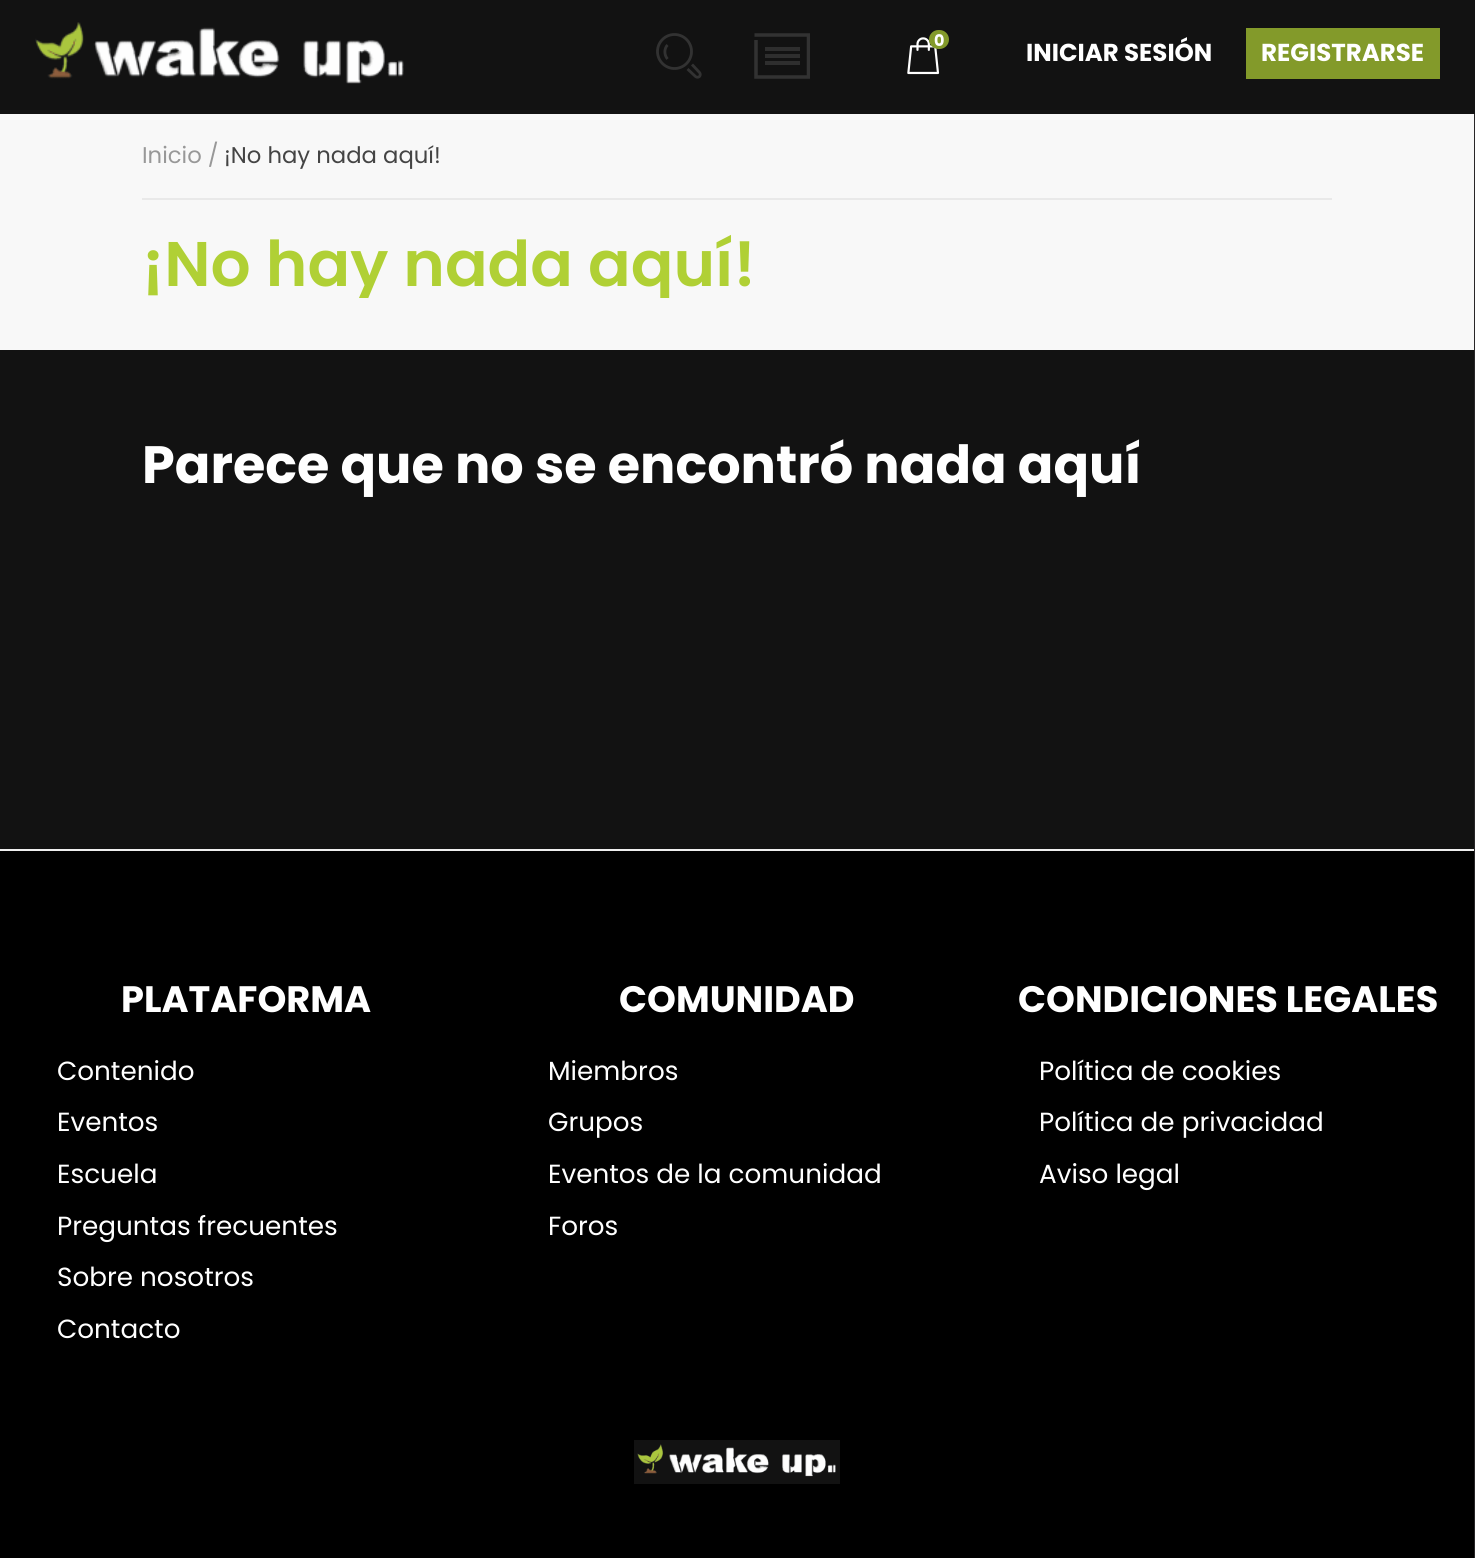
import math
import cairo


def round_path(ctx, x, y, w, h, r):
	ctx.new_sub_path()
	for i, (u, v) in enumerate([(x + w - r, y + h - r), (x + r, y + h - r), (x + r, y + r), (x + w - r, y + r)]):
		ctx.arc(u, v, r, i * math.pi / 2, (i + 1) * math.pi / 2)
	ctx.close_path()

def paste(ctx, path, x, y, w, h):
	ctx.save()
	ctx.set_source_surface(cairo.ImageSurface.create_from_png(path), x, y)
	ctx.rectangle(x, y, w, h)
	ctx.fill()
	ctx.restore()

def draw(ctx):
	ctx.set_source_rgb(0.071, 0.071, 0.071)
	ctx.paint()
	ctx.set_source_rgb(0.157, 0.149, 0.153)
	ctx.rectangle(1474, 114, 1, 1444)
	ctx.fill()
	paste(ctx, 'media/1.png', 35, 22, 369, 62)
	ctx.arc(674.5, 51.5, 17, 0, 2 * math.pi)
	ctx.set_source_rgb(0.196, 0.196, 0.196)
	ctx.set_line_width(2.8)
	ctx.stroke()
	ctx.new_path()
	ctx.move_to(687.5, 69)
	ctx.line_to(695.5, 76.5)
	ctx.curve_to(696.5, 77.5, 698.5, 77.5, 699.5, 76.5)
	ctx.curve_to(700.5, 75.5, 700.5, 73.5, 699.5, 72.5)
	ctx.line_to(692, 64.5)
	ctx.move_to(667.5, 59)
	ctx.curve_to(664, 55, 664, 48.5, 667.5, 45)
	ctx.stroke()
	ctx.set_source_rgb(0.18, 0.18, 0.18)
	ctx.rectangle(765, 47, 35, 4)
	ctx.rectangle(765, 54, 35, 4)
	ctx.rectangle(765, 61, 35, 4)
	ctx.fill()
	ctx.save()
	ctx.rectangle(754, 33, 56, 46)
	ctx.clip()
	ctx.new_path()
	ctx.move_to(756, 40)
	ctx.line_to(756, 77)
	ctx.line_to(808.5, 77)
	ctx.line_to(808.5, 35)
	ctx.line_to(754.5, 35)
	ctx.set_source_rgb(0.196, 0.196, 0.196)
	ctx.set_line_width(3.5)
	ctx.stroke()
	ctx.restore()
	paste(ctx, 'media/2.png', 907, 37, 33, 38)
	ctx.set_source_rgb(0.514, 0.604, 0.165)
	round_path(ctx, 929, 30, 20, 19, 9.5)
	ctx.fill()
	ctx.select_font_face('Poppins', cairo.FONT_SLANT_NORMAL, cairo.FONT_WEIGHT_BOLD)
	ctx.set_font_size(16)
	ctx.set_source_rgb(1, 1, 1)
	ctx.move_to(934, 46)
	ctx.show_text('0')
	ctx.set_font_size(24.5)
	ctx.move_to(1026, 61)
	ctx.show_text('INICIAR SESIÓN')
	ctx.set_source_rgb(0.514, 0.604, 0.165)
	ctx.rectangle(1246, 28, 194, 51)
	ctx.fill()
	ctx.set_source_rgb(1, 1, 1)
	ctx.move_to(1261, 61)
	ctx.show_text('REGISTRARSE')
	ctx.set_source_rgb(0.969, 0.969, 0.969)
	ctx.rectangle(0, 114, 1474, 236)
	ctx.fill()
	ctx.set_source_rgb(0.914, 0.914, 0.914)
	ctx.rectangle(142, 198, 1190, 2)
	ctx.fill()
	ctx.select_font_face('Poppins')
	ctx.set_font_size(22.75)
	ctx.set_source_rgb(0.596, 0.596, 0.596)
	ctx.move_to(142, 163)
	ctx.show_text('Inicio /')
	ctx.set_source_rgb(0.267, 0.267, 0.267)
	ctx.move_to(224, 163)
	ctx.show_text('¡No hay nada aquí!')
	ctx.save()
	ctx.rectangle(142, 114, 1190, 184)
	ctx.clip()
	ctx.select_font_face('Poppins SemiBold')
	ctx.set_font_size(63)
	ctx.set_source_rgb(0.69, 0.816, 0.208)
	ctx.move_to(142, 286)
	ctx.show_text('¡No hay nada aquí!')
	ctx.restore()
	ctx.select_font_face('Poppins', cairo.FONT_SLANT_NORMAL, cairo.FONT_WEIGHT_BOLD)
	ctx.set_font_size(52.5)
	ctx.set_source_rgb(1, 1, 1)
	ctx.move_to(142, 483)
	ctx.show_text('Parece que no se encontró nada aquí')
	ctx.set_source_rgb(0.937, 0.937, 0.937)
	ctx.rectangle(0, 849, 1474, 2)
	ctx.fill()
	ctx.set_source_rgb(0, 0, 0)
	ctx.rectangle(0, 851, 1474, 707)
	ctx.fill()
	ctx.set_font_size(36.75)
	ctx.set_source_rgb(1, 1, 1)
	ctx.move_to(121, 1012)
	ctx.show_text('PLATAFORMA')
	ctx.select_font_face('Poppins')
	ctx.set_font_size(26.25)
	for x, y, s in [
		(57, 1080, 'Contenido'),
		(57, 1131, 'Eventos'),
		(57, 1183, 'Escuela'),
		(57, 1235, 'Preguntas frecuentes'),
		(57, 1286, 'Sobre nosotros'),
		(57, 1338, 'Contacto'),
	]:
		ctx.move_to(x, y)
		ctx.show_text(s)
	ctx.select_font_face('Poppins', cairo.FONT_SLANT_NORMAL, cairo.FONT_WEIGHT_BOLD)
	ctx.set_font_size(36.75)
	ctx.move_to(619, 1012)
	ctx.show_text('COMUNIDAD')
	ctx.select_font_face('Poppins')
	ctx.set_font_size(26.25)
	for x, y, s in [
		(548, 1080, 'Miembros'),
		(548, 1131, 'Grupos'),
		(548, 1183, 'Eventos de la comunidad'),
		(548, 1235, 'Foros'),
	]:
		ctx.move_to(x, y)
		ctx.show_text(s)
	ctx.select_font_face('Poppins', cairo.FONT_SLANT_NORMAL, cairo.FONT_WEIGHT_BOLD)
	ctx.set_font_size(36.75)
	ctx.move_to(1018, 1012)
	ctx.show_text('CONDICIONES LEGALES')
	ctx.select_font_face('Poppins')
	ctx.set_font_size(26.25)
	for x, y, s in [
		(1039, 1080, 'Política de cookies'),
		(1039, 1131, 'Política de privacidad'),
		(1039, 1183, 'Aviso legal'),
	]:
		ctx.move_to(x, y)
		ctx.show_text(s)
	paste(ctx, 'media/3.png', 634, 1440, 206, 44)


surface = cairo.ImageSurface(cairo.FORMAT_RGB24, 1475, 1558)
ctx = cairo.Context(surface)
options = cairo.FontOptions()
options.set_hint_metrics(cairo.HINT_METRICS_OFF)
options.set_hint_style(cairo.HINT_STYLE_NONE)
ctx.set_font_options(options)
ctx.set_miter_limit(4)
draw(ctx)
surface.write_to_png('image.png')
